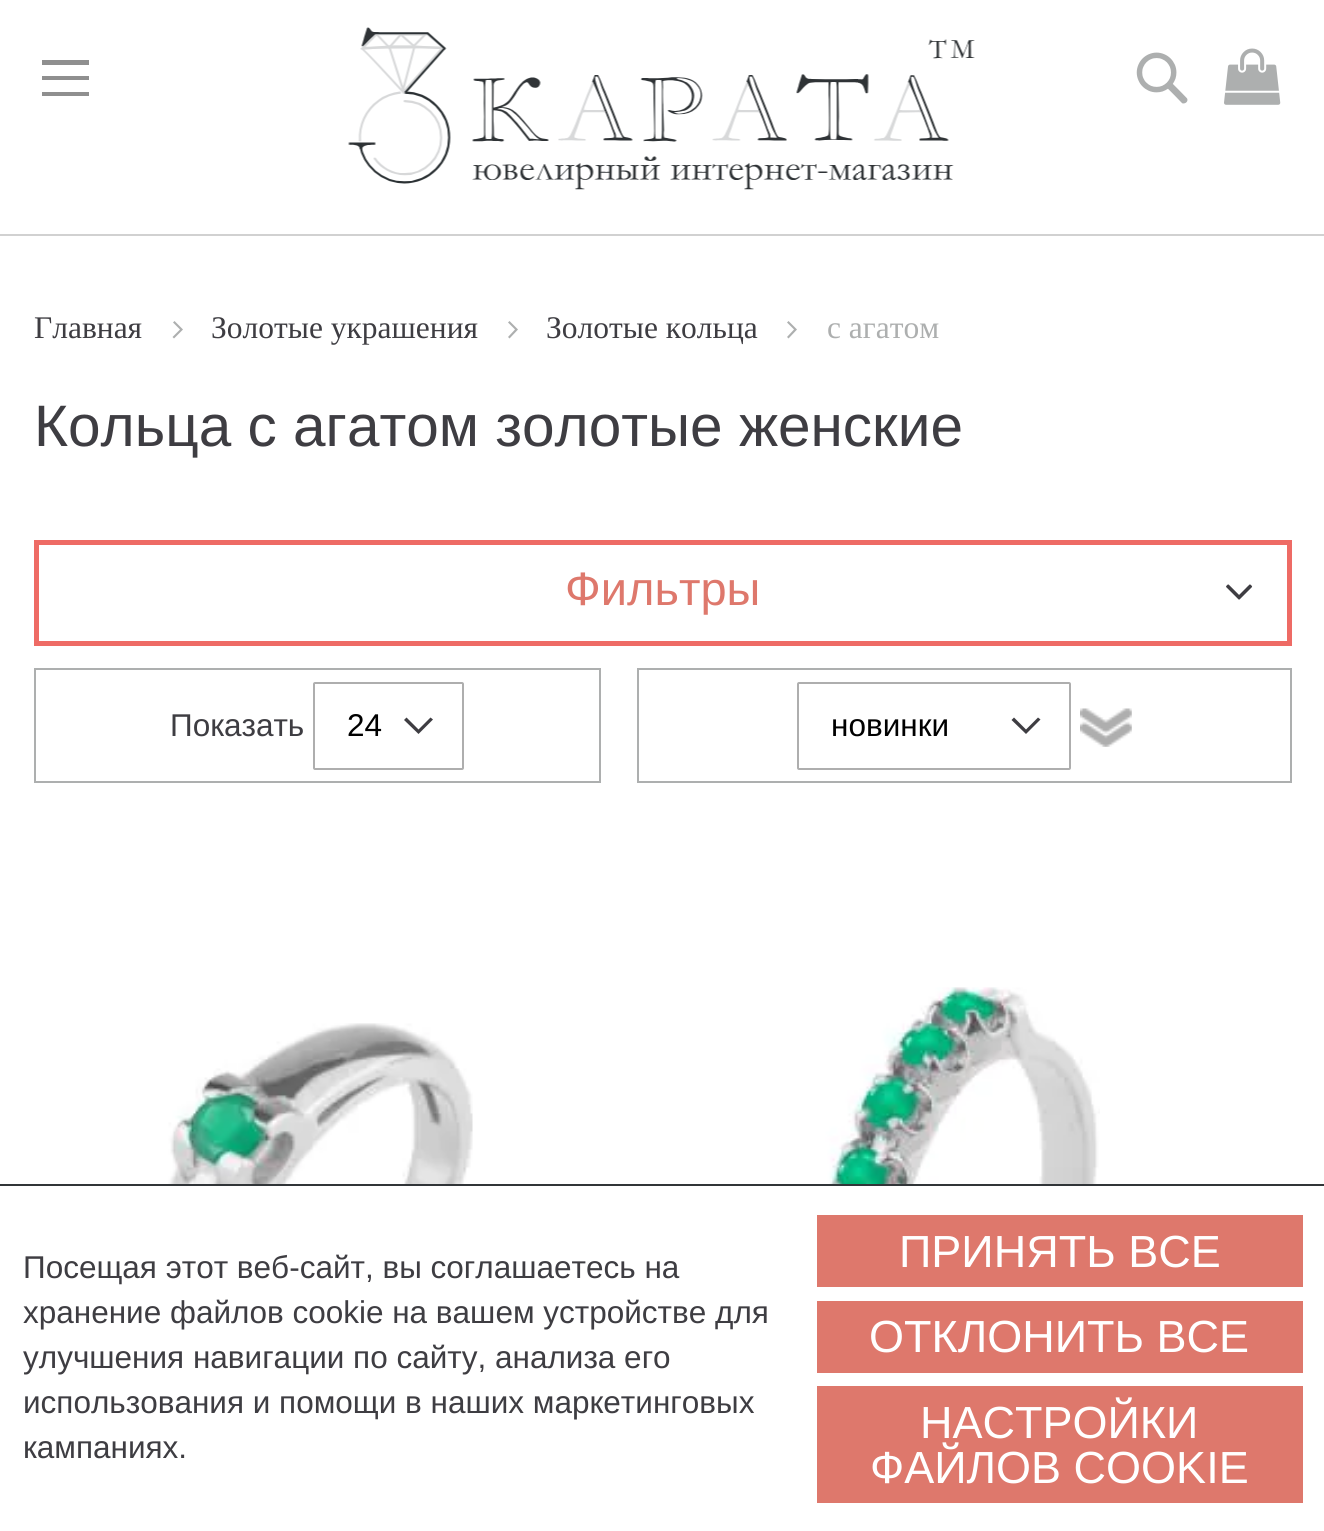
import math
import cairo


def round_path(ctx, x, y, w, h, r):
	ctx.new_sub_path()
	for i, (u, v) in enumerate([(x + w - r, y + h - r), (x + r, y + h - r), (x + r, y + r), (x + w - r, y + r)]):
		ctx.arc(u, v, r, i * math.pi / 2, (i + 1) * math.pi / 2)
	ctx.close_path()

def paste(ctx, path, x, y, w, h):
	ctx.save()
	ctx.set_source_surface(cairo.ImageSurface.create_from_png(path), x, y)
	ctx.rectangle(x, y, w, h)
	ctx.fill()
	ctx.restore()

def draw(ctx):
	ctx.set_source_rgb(1, 1, 1)
	ctx.paint()
	paste(ctx, 'media/1.png', 348, 27, 627, 163)
	paste(ctx, 'media/2.png', 1224, 48, 57, 57)
	paste(ctx, 'media/3.png', 1136, 52, 52, 52)
	ctx.set_source_rgb(0.82, 0.82, 0.82)
	ctx.rectangle(0, 234, 1324, 2)
	ctx.fill()
	ctx.set_source_rgb(0.561, 0.561, 0.561)
	ctx.new_path()
	ctx.move_to(42, 60)
	ctx.line_to(42, 65)
	ctx.line_to(89, 65)
	ctx.line_to(89, 60)
	ctx.close_path()
	ctx.move_to(42, 80)
	ctx.line_to(89, 80)
	ctx.line_to(89, 76)
	ctx.line_to(42, 76)
	ctx.close_path()
	ctx.move_to(42, 96)
	ctx.line_to(89, 96)
	ctx.line_to(89, 92)
	ctx.line_to(42, 92)
	ctx.close_path()
	ctx.fill()
	ctx.select_font_face('Liberation Serif')
	ctx.set_font_size(31.5)
	ctx.set_source_rgb(0.243, 0.239, 0.259)
	ctx.move_to(34, 338)
	ctx.show_text('Главная')
	ctx.set_source_rgb(0.678, 0.686, 0.686)
	ctx.new_path()
	ctx.move_to(183, 329.5)
	ctx.line_to(174.5, 321)
	ctx.line_to(173, 322.5)
	ctx.line_to(180, 329.5)
	ctx.line_to(172.5, 337)
	ctx.line_to(174, 338.5)
	ctx.close_path()
	ctx.fill()
	ctx.set_source_rgb(0.243, 0.239, 0.259)
	ctx.move_to(211, 338)
	ctx.show_text('Золотые украшения')
	ctx.set_source_rgb(0.678, 0.686, 0.686)
	ctx.new_path()
	ctx.move_to(518, 329.5)
	ctx.line_to(509.5, 321)
	ctx.line_to(508, 322.5)
	ctx.line_to(515, 329.5)
	ctx.line_to(508, 337)
	ctx.line_to(509.5, 338.5)
	ctx.close_path()
	ctx.fill()
	ctx.set_source_rgb(0.243, 0.239, 0.259)
	ctx.move_to(546, 338)
	ctx.show_text('Золотые кольца')
	ctx.set_source_rgb(0.678, 0.686, 0.686)
	ctx.new_path()
	ctx.move_to(797, 329.5)
	ctx.line_to(788.5, 321)
	ctx.line_to(787, 322.5)
	ctx.line_to(794, 329.5)
	ctx.line_to(787, 337)
	ctx.line_to(788.5, 338.5)
	ctx.close_path()
	ctx.fill()
	ctx.move_to(827, 338)
	ctx.show_text('с агатом')
	ctx.select_font_face('Liberation Sans')
	ctx.set_font_size(58.5)
	ctx.set_source_rgb(0.243, 0.239, 0.259)
	ctx.move_to(34, 446)
	ctx.show_text('Кольца с агатом золотые женские')
	ctx.rectangle(36.5, 542.5, 1253, 101)
	ctx.set_source_rgb(0.933, 0.42, 0.396)
	ctx.set_line_width(5)
	ctx.stroke()
	ctx.set_font_size(47)
	ctx.set_source_rgb(0.871, 0.471, 0.424)
	ctx.move_to(565, 605)
	ctx.show_text('Фильтры')
	paste(ctx, 'media/4.png', 1226, 584, 27, 16)
	ctx.rectangle(35, 669, 565, 113)
	ctx.set_source_rgb(0.678, 0.686, 0.686)
	ctx.set_line_width(2)
	ctx.stroke()
	ctx.set_font_size(31.5)
	ctx.set_source_rgb(0.243, 0.239, 0.259)
	ctx.move_to(170, 736)
	ctx.show_text('Показать')
	round_path(ctx, 314, 683, 149, 86, 1)
	ctx.set_source_rgb(0.682, 0.682, 0.682)
	ctx.stroke()
	ctx.select_font_face('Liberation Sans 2')
	ctx.set_source_rgb(0, 0, 0)
	ctx.move_to(347, 736)
	ctx.show_text('24')
	ctx.set_source_rgb(0.243, 0.239, 0.259)
	ctx.new_path()
	ctx.move_to(418.5, 729.5)
	ctx.line_to(406.5, 717.5)
	ctx.line_to(404, 720)
	ctx.line_to(418.5, 734)
	ctx.line_to(433, 719.5)
	ctx.line_to(430.5, 717.5)
	ctx.close_path()
	ctx.fill()
	ctx.rectangle(638, 669, 653, 113)
	ctx.set_source_rgb(0.678, 0.686, 0.686)
	ctx.stroke()
	round_path(ctx, 798, 683, 272, 86, 1)
	ctx.set_source_rgb(0.682, 0.682, 0.682)
	ctx.stroke()
	ctx.select_font_face('Liberation Sans')
	ctx.set_source_rgb(0, 0, 0)
	ctx.move_to(831, 736)
	ctx.show_text('новинки')
	ctx.set_source_rgb(0.243, 0.239, 0.259)
	ctx.new_path()
	ctx.move_to(1026, 729.5)
	ctx.line_to(1014, 717.5)
	ctx.line_to(1011.5, 720)
	ctx.line_to(1026, 734)
	ctx.line_to(1040.5, 719.5)
	ctx.line_to(1038, 717.5)
	ctx.close_path()
	ctx.fill()
	paste(ctx, 'media/5.png', 1080, 708, 52, 39)
	paste(ctx, 'media/6.png', 150, 1023, 323, 161)
	paste(ctx, 'media/7.png', 812, 987, 288, 197)
	ctx.set_source_rgb(0.192, 0.208, 0.22)
	ctx.rectangle(0, 1184, 1324, 2)
	ctx.fill()
	ctx.set_source_rgb(0.243, 0.239, 0.259)
	for x, y, s in [
		(23, 1278, 'Посещая этот веб-сайт, вы соглашаетесь на'),
		(23, 1323, 'хранение файлов cookie на вашем устройстве для'),
		(23, 1368, 'улучшения навигации по сайту, анализа его'),
		(23, 1413, 'использования и помощи в наших маркетинговых'),
		(23, 1458, 'кампаниях.'),
	]:
		ctx.move_to(x, y)
		ctx.show_text(s)
	ctx.set_source_rgb(0.871, 0.471, 0.424)
	ctx.rectangle(817, 1215, 486, 72)
	ctx.fill()
	ctx.set_font_size(45)
	ctx.set_source_rgb(1, 1, 1)
	ctx.move_to(899, 1267)
	ctx.show_text('ПРИНЯТЬ ВСЕ')
	ctx.set_source_rgb(0.871, 0.471, 0.424)
	ctx.rectangle(817, 1301, 486, 72)
	ctx.fill()
	ctx.set_source_rgb(1, 1, 1)
	ctx.move_to(869, 1352)
	ctx.show_text('ОТКЛОНИТЬ ВСЕ')
	ctx.set_source_rgb(0.871, 0.471, 0.424)
	ctx.rectangle(817, 1386, 486, 117)
	ctx.fill()
	ctx.set_source_rgb(1, 1, 1)
	ctx.move_to(920, 1438)
	ctx.show_text('НАСТРОЙКИ')
	ctx.move_to(870, 1483)
	ctx.show_text('ФАЙЛОВ COOKIE')


surface = cairo.ImageSurface(cairo.FORMAT_RGB24, 1324, 1531)
ctx = cairo.Context(surface)
options = cairo.FontOptions()
options.set_hint_metrics(cairo.HINT_METRICS_OFF)
options.set_hint_style(cairo.HINT_STYLE_NONE)
ctx.set_font_options(options)
ctx.set_miter_limit(4)
draw(ctx)
surface.write_to_png('image.png')
